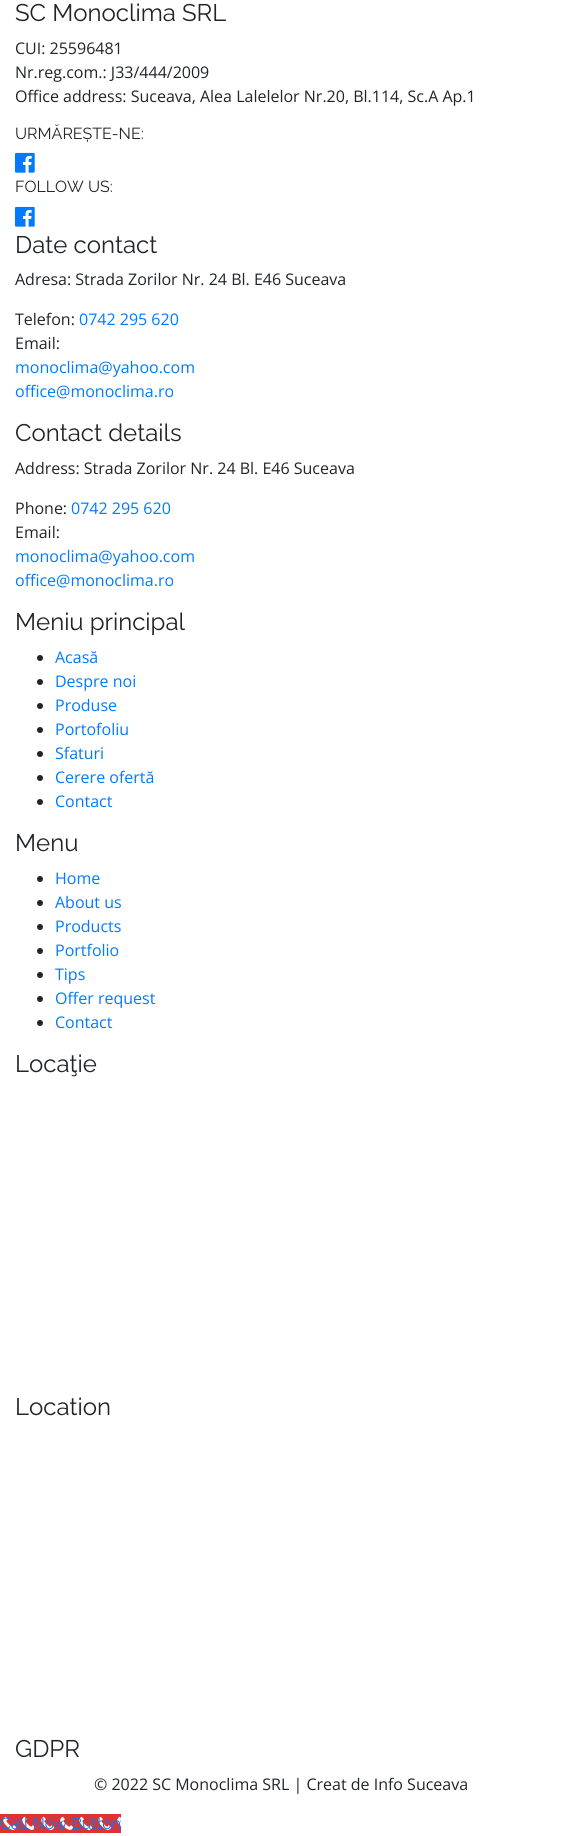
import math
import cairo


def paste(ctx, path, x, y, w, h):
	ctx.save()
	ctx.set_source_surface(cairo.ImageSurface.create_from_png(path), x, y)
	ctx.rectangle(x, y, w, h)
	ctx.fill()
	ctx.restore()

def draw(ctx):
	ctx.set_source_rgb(1, 1, 1)
	ctx.paint()
	ctx.select_font_face('Raleway')
	ctx.set_font_size(24)
	ctx.set_source_rgb(0.129, 0.145, 0.161)
	ctx.move_to(15, 21)
	ctx.show_text('SC Monoclima SRL')
	ctx.select_font_face('Open Sans')
	ctx.set_font_size(16)
	for x, y, s in [
		(15, 54, 'CUI: 25596481'),
		(15, 78, 'Nr.reg.com.: J33/444/2009'),
		(15, 102, 'Office address: Suceava, Alea Lalelelor Nr.20, Bl.114, Sc.A Ap.1'),
	]:
		ctx.move_to(x, y)
		ctx.show_text(s)
	ctx.select_font_face('Raleway')
	ctx.move_to(15, 139)
	ctx.show_text('URMĂREȘTE-NE:')
	paste(ctx, 'media/1.png', 15, 152, 20, 21)
	ctx.move_to(15, 192)
	ctx.show_text('FOLLOW US:')
	paste(ctx, 'media/1.png', 15, 206, 20, 21)
	ctx.set_font_size(24)
	ctx.move_to(15, 253)
	ctx.show_text('Date contact')
	ctx.select_font_face('Open Sans')
	ctx.set_font_size(16)
	ctx.move_to(15, 285)
	ctx.show_text('Adresa: Strada Zorilor Nr. 24 Bl. E46 Suceava')
	ctx.move_to(15, 325)
	ctx.show_text('Telefon:')
	ctx.set_source_rgb(0, 0.482, 1)
	ctx.move_to(79, 325)
	ctx.show_text('0742 295 620')
	ctx.set_source_rgb(0.129, 0.145, 0.161)
	ctx.move_to(15, 349)
	ctx.show_text('Email:')
	ctx.set_source_rgb(0, 0.482, 1)
	ctx.move_to(15, 373)
	ctx.show_text('monoclima@yahoo.com')
	ctx.move_to(15, 397)
	ctx.show_text('office@monoclima.ro')
	ctx.select_font_face('Raleway')
	ctx.set_font_size(24)
	ctx.set_source_rgb(0.129, 0.145, 0.161)
	ctx.move_to(15, 441)
	ctx.show_text('Contact details')
	ctx.select_font_face('Open Sans')
	ctx.set_font_size(16)
	ctx.move_to(15, 474)
	ctx.show_text('Address: Strada Zorilor Nr. 24 Bl. E46 Suceava')
	ctx.move_to(15, 514)
	ctx.show_text('Phone:')
	ctx.set_source_rgb(0, 0.482, 1)
	ctx.move_to(71, 514)
	ctx.show_text('0742 295 620')
	ctx.set_source_rgb(0.129, 0.145, 0.161)
	ctx.move_to(15, 538)
	ctx.show_text('Email:')
	ctx.set_source_rgb(0, 0.482, 1)
	ctx.move_to(15, 562)
	ctx.show_text('monoclima@yahoo.com')
	ctx.move_to(15, 586)
	ctx.show_text('office@monoclima.ro')
	ctx.select_font_face('Raleway')
	ctx.set_font_size(24)
	ctx.set_source_rgb(0.129, 0.145, 0.161)
	ctx.move_to(15, 630)
	ctx.show_text('Meniu principal')
	ctx.new_path()
	ctx.arc(40, 658, 3, 0, 2 * math.pi)
	ctx.fill()
	ctx.select_font_face('Open Sans')
	ctx.set_font_size(16)
	ctx.set_source_rgb(0, 0.482, 1)
	ctx.move_to(55, 663)
	ctx.show_text('Acasă')
	ctx.set_source_rgb(0.129, 0.145, 0.161)
	ctx.new_path()
	ctx.arc(40, 682, 3, 0, 2 * math.pi)
	ctx.fill()
	ctx.set_source_rgb(0, 0.482, 1)
	ctx.move_to(55, 687)
	ctx.show_text('Despre noi')
	ctx.set_source_rgb(0.129, 0.145, 0.161)
	ctx.new_path()
	ctx.arc(40, 706, 3, 0, 2 * math.pi)
	ctx.fill()
	ctx.set_source_rgb(0, 0.482, 1)
	ctx.move_to(55, 711)
	ctx.show_text('Produse')
	ctx.set_source_rgb(0.129, 0.145, 0.161)
	ctx.new_path()
	ctx.arc(40, 730, 3, 0, 2 * math.pi)
	ctx.fill()
	ctx.set_source_rgb(0, 0.482, 1)
	ctx.move_to(55, 735)
	ctx.show_text('Portofoliu')
	ctx.set_source_rgb(0.129, 0.145, 0.161)
	ctx.new_path()
	ctx.arc(40, 754, 3, 0, 2 * math.pi)
	ctx.fill()
	ctx.set_source_rgb(0, 0.482, 1)
	ctx.move_to(55, 759)
	ctx.show_text('Sfaturi')
	ctx.set_source_rgb(0.129, 0.145, 0.161)
	ctx.new_path()
	ctx.arc(40, 778, 3, 0, 2 * math.pi)
	ctx.fill()
	ctx.set_source_rgb(0, 0.482, 1)
	ctx.move_to(55, 783)
	ctx.show_text('Cerere ofertă')
	ctx.set_source_rgb(0.129, 0.145, 0.161)
	ctx.new_path()
	ctx.arc(40, 802, 3, 0, 2 * math.pi)
	ctx.fill()
	ctx.set_source_rgb(0, 0.482, 1)
	ctx.move_to(55, 807)
	ctx.show_text('Contact')
	ctx.select_font_face('Raleway')
	ctx.set_font_size(24)
	ctx.set_source_rgb(0.129, 0.145, 0.161)
	ctx.move_to(15, 851)
	ctx.show_text('Menu')
	ctx.new_path()
	ctx.arc(40, 879, 3, 0, 2 * math.pi)
	ctx.fill()
	ctx.select_font_face('Open Sans')
	ctx.set_font_size(16)
	ctx.set_source_rgb(0, 0.482, 1)
	ctx.move_to(55, 884)
	ctx.show_text('Home')
	ctx.set_source_rgb(0.129, 0.145, 0.161)
	ctx.new_path()
	ctx.arc(40, 903, 3, 0, 2 * math.pi)
	ctx.fill()
	ctx.set_source_rgb(0, 0.482, 1)
	ctx.move_to(55, 908)
	ctx.show_text('About us')
	ctx.set_source_rgb(0.129, 0.145, 0.161)
	ctx.new_path()
	ctx.arc(40, 927, 3, 0, 2 * math.pi)
	ctx.fill()
	ctx.set_source_rgb(0, 0.482, 1)
	ctx.move_to(55, 932)
	ctx.show_text('Products')
	ctx.set_source_rgb(0.129, 0.145, 0.161)
	ctx.new_path()
	ctx.arc(40, 951, 3, 0, 2 * math.pi)
	ctx.fill()
	ctx.set_source_rgb(0, 0.482, 1)
	ctx.move_to(55, 956)
	ctx.show_text('Portfolio')
	ctx.set_source_rgb(0.129, 0.145, 0.161)
	ctx.new_path()
	ctx.arc(40, 975, 3, 0, 2 * math.pi)
	ctx.fill()
	ctx.set_source_rgb(0, 0.482, 1)
	ctx.move_to(55, 980)
	ctx.show_text('Tips')
	ctx.set_source_rgb(0.129, 0.145, 0.161)
	ctx.new_path()
	ctx.arc(40, 999, 3, 0, 2 * math.pi)
	ctx.fill()
	ctx.set_source_rgb(0, 0.482, 1)
	ctx.move_to(55, 1004)
	ctx.show_text('Offer request')
	ctx.set_source_rgb(0.129, 0.145, 0.161)
	ctx.new_path()
	ctx.arc(40, 1023, 3, 0, 2 * math.pi)
	ctx.fill()
	ctx.set_source_rgb(0, 0.482, 1)
	ctx.move_to(55, 1028)
	ctx.show_text('Contact')
	ctx.select_font_face('Raleway')
	ctx.set_font_size(24)
	ctx.set_source_rgb(0.129, 0.145, 0.161)
	for x, y, s in [
		(15, 1072, 'Locaţie'),
		(15, 1415, 'Location'),
		(15, 1757, 'GDPR'),
	]:
		ctx.move_to(x, y)
		ctx.show_text(s)
	ctx.select_font_face('Open Sans')
	ctx.set_font_size(16)
	ctx.move_to(94, 1790)
	ctx.show_text('© 2022 SC Monoclima SRL | Creat de Info Suceava')
	ctx.set_source_rgb(0.867, 0.2, 0.2)
	ctx.rectangle(0, 1814, 121, 19)
	ctx.fill()
	paste(ctx, 'media/2.png', 3, 1816, 118, 14)
	ctx.select_font_face('Raleway')
	ctx.set_source_rgb(0, 0.482, 1)
	ctx.move_to(0, 1829)
	ctx.show_text('Call Now Button')


surface = cairo.ImageSurface(cairo.FORMAT_RGB24, 563, 1836)
ctx = cairo.Context(surface)
options = cairo.FontOptions()
options.set_hint_metrics(cairo.HINT_METRICS_OFF)
options.set_hint_style(cairo.HINT_STYLE_NONE)
ctx.set_font_options(options)
ctx.set_miter_limit(4)
draw(ctx)
surface.write_to_png('image.png')
